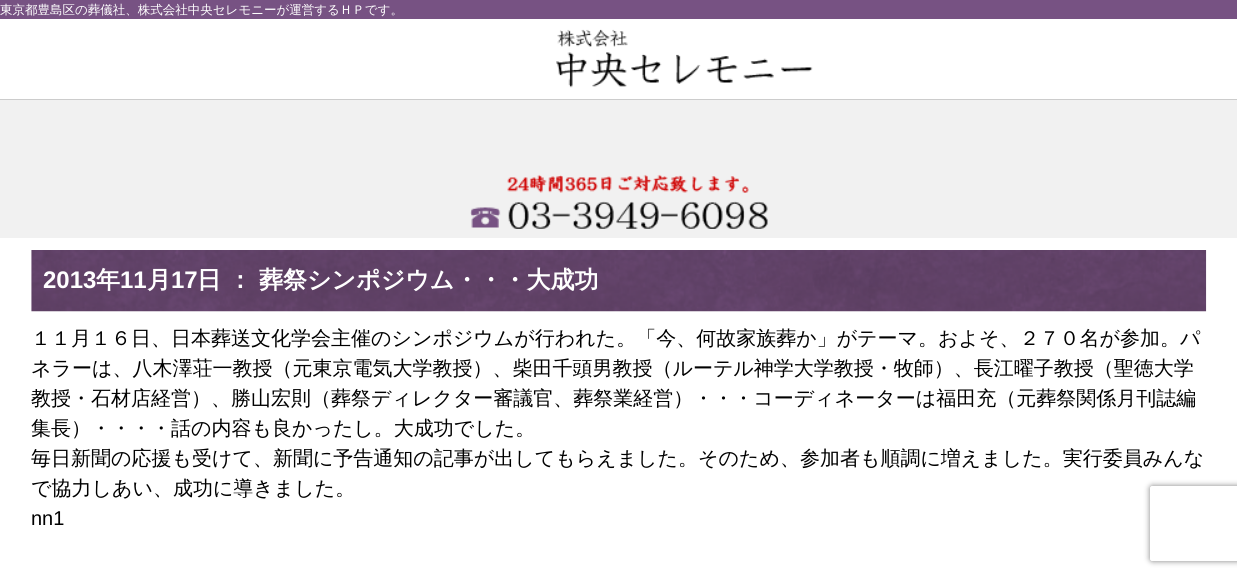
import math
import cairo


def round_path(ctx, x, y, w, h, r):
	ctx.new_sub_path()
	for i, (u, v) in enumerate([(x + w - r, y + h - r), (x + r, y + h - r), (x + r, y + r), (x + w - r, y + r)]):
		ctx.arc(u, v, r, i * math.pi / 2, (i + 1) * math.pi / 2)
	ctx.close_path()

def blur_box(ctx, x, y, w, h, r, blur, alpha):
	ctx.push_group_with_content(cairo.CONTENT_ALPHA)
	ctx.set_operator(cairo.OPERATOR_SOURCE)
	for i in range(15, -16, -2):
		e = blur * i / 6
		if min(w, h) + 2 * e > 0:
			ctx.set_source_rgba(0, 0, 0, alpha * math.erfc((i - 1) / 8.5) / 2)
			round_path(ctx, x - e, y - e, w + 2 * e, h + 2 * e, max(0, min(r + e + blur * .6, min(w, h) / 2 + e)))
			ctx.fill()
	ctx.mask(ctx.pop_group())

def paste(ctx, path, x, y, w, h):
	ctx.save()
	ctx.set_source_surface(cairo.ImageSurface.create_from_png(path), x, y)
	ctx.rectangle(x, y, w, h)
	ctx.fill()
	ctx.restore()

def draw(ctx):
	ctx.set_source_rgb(1, 1, 1)
	ctx.paint()
	ctx.set_source_rgb(0.467, 0.322, 0.514)
	ctx.rectangle(0, 0, 1237, 19)
	ctx.fill()
	ctx.select_font_face('WenQuanYi Zen Hei Medium')
	ctx.set_font_size(12.5)
	ctx.set_source_rgb(1, 1, 1)
	ctx.move_to(0, 14)
	ctx.show_text('東京都豊島区の葬儀社、株式会社中央セレモニーが運営するＨＰです。')
	ctx.set_source_rgb(0.8, 0.8, 0.8)
	ctx.rectangle(0, 99, 1237, 1)
	ctx.fill()
	paste(ctx, 'media/1.png', 556, 29, 257, 59)
	ctx.set_source_rgb(0.945, 0.945, 0.945)
	ctx.rectangle(0, 100, 1237, 138)
	ctx.fill()
	paste(ctx, 'media/2.png', 470, 174, 298, 55)
	paste(ctx, 'media/3.png', 31, 250, 1176, 62)
	ctx.select_font_face('Liberation Sans', cairo.FONT_SLANT_NORMAL, cairo.FONT_WEIGHT_BOLD)
	ctx.set_font_size(24)
	ctx.set_source_rgb(1, 1, 1)
	ctx.move_to(43, 288)
	ctx.show_text('2013')
	ctx.select_font_face('WenQuanYi Zen Hei', cairo.FONT_SLANT_NORMAL, cairo.FONT_WEIGHT_BOLD)
	ctx.move_to(96, 288)
	ctx.show_text('年')
	ctx.select_font_face('Liberation Sans', cairo.FONT_SLANT_NORMAL, cairo.FONT_WEIGHT_BOLD)
	ctx.move_to(120, 288)
	ctx.show_text('11')
	ctx.select_font_face('WenQuanYi Zen Hei', cairo.FONT_SLANT_NORMAL, cairo.FONT_WEIGHT_BOLD)
	ctx.move_to(147, 288)
	ctx.show_text('月')
	ctx.select_font_face('Liberation Sans', cairo.FONT_SLANT_NORMAL, cairo.FONT_WEIGHT_BOLD)
	ctx.move_to(171, 288)
	ctx.show_text('17')
	ctx.select_font_face('WenQuanYi Zen Hei', cairo.FONT_SLANT_NORMAL, cairo.FONT_WEIGHT_BOLD)
	for x, y, s in [
		(197, 288, '日'),
		(228, 288, '：'),
		(259, 288, '葬祭シンポジウム・・・大成功'),
	]:
		ctx.move_to(x, y)
		ctx.show_text(s)
	ctx.select_font_face('WenQuanYi Zen Hei Medium')
	ctx.set_font_size(20)
	ctx.set_source_rgb(0, 0, 0)
	for x, y, s in [
		(31, 345, '１１月１６日、日本葬送文化学会主催のシンポジウムが行われた。「今、何故家族葬か」がテーマ。およそ、２７０名が参加。パ'),
		(31, 375, 'ネラーは、八木澤荘一教授（元東京電気大学教授）、柴田千頭男教授（ルーテル神学大学教授・牧師）、長江曜子教授（聖徳大学'),
		(31, 405, '教授・石材店経営）、勝山宏則（葬祭ディレクター審議官、葬祭業経営）・・・コーディネーターは福田充（元葬祭関係月刊誌編'),
		(31, 435, '集長）・・・・話の内容も良かったし。大成功でした。'),
		(31, 465, '毎日新聞の応援も受けて、新聞に予告通知の記事が出してもらえました。そのため、参加者も順調に増えました。実行委員みんな'),
		(31, 495, 'で協力しあい、成功に導きました。'),
	]:
		ctx.move_to(x, y)
		ctx.show_text(s)
	ctx.select_font_face('Liberation Sans')
	ctx.move_to(31, 525)
	ctx.show_text('nn1')
	ctx.save()
	ctx.set_fill_rule(cairo.FILL_RULE_EVEN_ODD)
	ctx.new_path()
	ctx.move_to(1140, 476)
	ctx.line_to(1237, 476)
	ctx.line_to(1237, 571)
	ctx.line_to(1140, 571)
	ctx.close_path()
	ctx.move_to(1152.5, 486)
	ctx.line_to(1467.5, 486)
	ctx.curve_to(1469, 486, 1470, 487, 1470, 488.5)
	ctx.line_to(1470, 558.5)
	ctx.curve_to(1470, 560, 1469, 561, 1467.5, 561)
	ctx.line_to(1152.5, 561)
	ctx.curve_to(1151, 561, 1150, 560, 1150, 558.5)
	ctx.line_to(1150, 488.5)
	ctx.curve_to(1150, 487, 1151, 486, 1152.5, 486)
	ctx.close_path()
	ctx.clip()
	ctx.set_source_rgb(0.502, 0.502, 0.502)
	blur_box(ctx, 1150, 486, 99, 75, 2.5, 3, 1)
	ctx.restore()


surface = cairo.ImageSurface(cairo.FORMAT_RGB24, 1237, 578)
ctx = cairo.Context(surface)
options = cairo.FontOptions()
options.set_hint_metrics(cairo.HINT_METRICS_OFF)
options.set_hint_style(cairo.HINT_STYLE_NONE)
ctx.set_font_options(options)
ctx.set_miter_limit(4)
draw(ctx)
surface.write_to_png('image.png')
